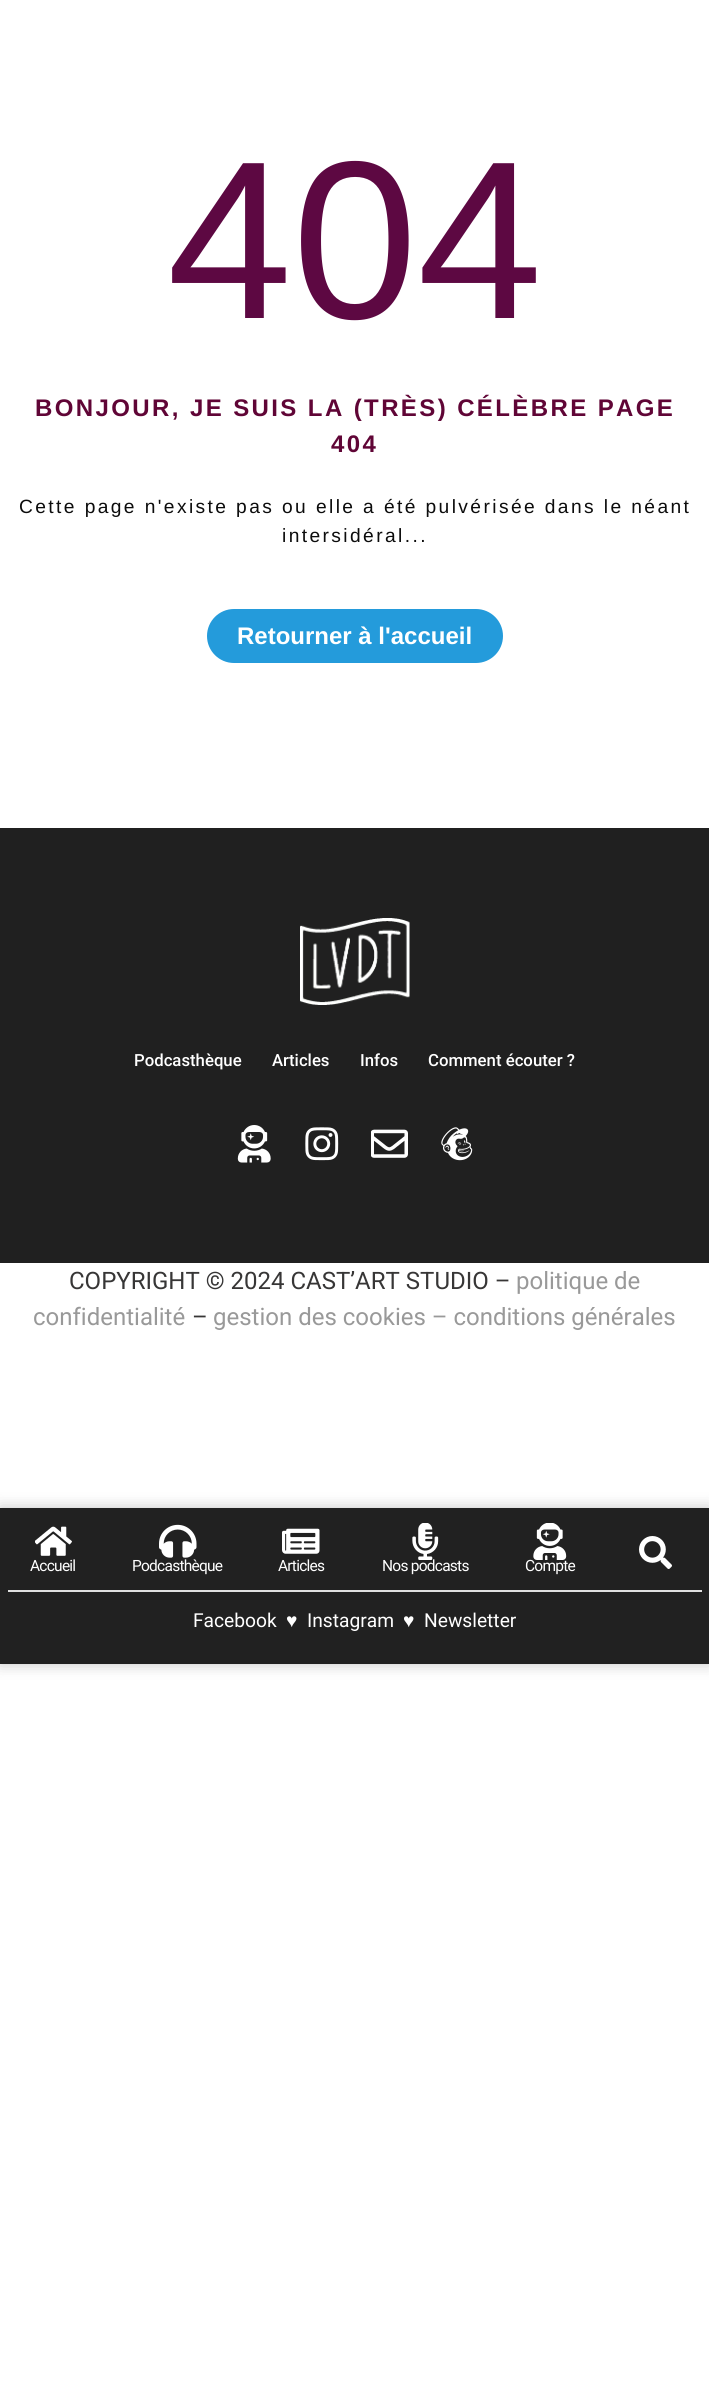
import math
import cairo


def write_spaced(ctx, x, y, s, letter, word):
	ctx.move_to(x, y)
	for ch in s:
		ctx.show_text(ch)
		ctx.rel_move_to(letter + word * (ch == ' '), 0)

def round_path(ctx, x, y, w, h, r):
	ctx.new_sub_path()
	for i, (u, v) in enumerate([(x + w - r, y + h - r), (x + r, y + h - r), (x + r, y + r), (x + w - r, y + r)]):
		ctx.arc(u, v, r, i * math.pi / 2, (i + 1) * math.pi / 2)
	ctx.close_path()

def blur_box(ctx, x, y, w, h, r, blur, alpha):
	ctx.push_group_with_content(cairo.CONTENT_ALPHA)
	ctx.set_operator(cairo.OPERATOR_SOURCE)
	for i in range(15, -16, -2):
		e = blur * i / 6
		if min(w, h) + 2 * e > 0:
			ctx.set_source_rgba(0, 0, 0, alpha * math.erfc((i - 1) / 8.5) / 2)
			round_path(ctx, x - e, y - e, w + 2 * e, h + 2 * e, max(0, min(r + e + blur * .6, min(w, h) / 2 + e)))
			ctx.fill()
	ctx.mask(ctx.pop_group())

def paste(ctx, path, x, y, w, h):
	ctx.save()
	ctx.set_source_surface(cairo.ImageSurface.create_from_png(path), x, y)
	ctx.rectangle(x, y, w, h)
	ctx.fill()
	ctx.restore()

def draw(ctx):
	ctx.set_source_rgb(1, 1, 1)
	ctx.paint()
	ctx.select_font_face('Liberation Sans')
	ctx.set_font_size(225)
	ctx.set_source_rgb(0.365, 0.035, 0.259)
	ctx.move_to(167, 318)
	ctx.show_text('404')
	ctx.select_font_face('Liberation Sans', cairo.FONT_SLANT_NORMAL, cairo.FONT_WEIGHT_BOLD)
	ctx.set_font_size(24)
	ctx.set_source_rgb(0.376, 0.02, 0.212)
	write_spaced(ctx, 35, 416, 'BONJOUR, JE SUIS LA (TRÈS) CÉLÈBRE PAGE', 2.4, 0)
	write_spaced(ctx, 331, 452, '404', 2.4, 0)
	ctx.select_font_face('Liberation Sans')
	ctx.set_font_size(19.2)
	ctx.set_source_rgb(0.047, 0.047, 0.047)
	write_spaced(ctx, 19, 513, 'Cette page n\'existe pas ou elle a été pulvérisée dans le néant', 2.4, 0)
	write_spaced(ctx, 282, 542, 'intersidéral...', 2.4, 0)
	ctx.set_source_rgb(0.141, 0.608, 0.859)
	round_path(ctx, 207, 609, 296, 54, 27)
	ctx.fill()
	ctx.select_font_face('Liberation Sans', cairo.FONT_SLANT_NORMAL, cairo.FONT_WEIGHT_BOLD)
	ctx.set_font_size(24)
	ctx.set_source_rgb(1, 1, 1)
	ctx.move_to(237, 644)
	ctx.show_text('Retourner à l\'accueil')
	ctx.set_source_rgb(0.125, 0.125, 0.125)
	ctx.rectangle(0, 828, 709, 435)
	ctx.fill()
	paste(ctx, 'media/1.png', 300, 918, 110, 87)
	ctx.select_font_face('Roboto Medium')
	ctx.set_font_size(16.75)
	ctx.set_source_rgb(1, 1, 1)
	for x, y, s in [
		(134, 1066, 'Podcasthèque'),
		(272, 1066, 'Articles'),
		(360, 1066, 'Infos'),
		(428, 1066, 'Comment écouter ?'),
	]:
		ctx.move_to(x, y)
		ctx.show_text(s)
	paste(ctx, 'media/2.png', 237, 1125, 34, 38)
	paste(ctx, 'media/3.png', 305, 1127, 34, 34)
	paste(ctx, 'media/4.png', 371, 1129, 37, 29)
	paste(ctx, 'media/5.png', 441, 1127, 32, 34)
	ctx.select_font_face('Roboto')
	ctx.set_font_size(24)
	ctx.set_source_rgb(0.216, 0.212, 0.212)
	ctx.move_to(69, 1289)
	ctx.show_text('COPYRIGHT © 2024 CAST’ART STUDIO –')
	ctx.set_source_rgb(0.6, 0.6, 0.6)
	ctx.move_to(516, 1289)
	ctx.show_text('politique de')
	ctx.move_to(33, 1325)
	ctx.show_text('confidentialité')
	ctx.set_source_rgb(0.216, 0.212, 0.212)
	ctx.move_to(192, 1325)
	ctx.show_text('–')
	ctx.set_source_rgb(0.6, 0.6, 0.6)
	ctx.move_to(213, 1325)
	ctx.show_text('gestion des cookies – conditions générales')
	ctx.set_source_rgb(0, 0, 0)
	blur_box(ctx, 0, 1508, 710, 156, 0, 7.5, 0.23)
	ctx.set_source_rgb(0.129, 0.129, 0.129)
	ctx.rectangle(0, 1508, 709, 156)
	ctx.fill()
	paste(ctx, 'media/6.png', 35, 1526, 37, 30)
	ctx.set_font_size(15.5)
	ctx.set_source_rgb(1, 1, 1)
	write_spaced(ctx, 30, 1571, 'Accueil', -0.75, 0)
	paste(ctx, 'media/7.png', 159, 1524, 38, 34)
	write_spaced(ctx, 132, 1571, 'Podcasthèque', -0.75, 0)
	paste(ctx, 'media/8.png', 282, 1528, 38, 26)
	write_spaced(ctx, 278, 1571, 'Articles', -0.75, 0)
	write_spaced(ctx, 382, 1571, 'Nos podcasts', -0.75, 0)
	paste(ctx, 'media/9.png', 412, 1523, 27, 37)
	write_spaced(ctx, 525, 1571, 'Compte', -0.75, 0)
	paste(ctx, 'media/10.png', 533, 1523, 34, 37)
	paste(ctx, 'media/11.png', 639, 1536, 33, 33)
	ctx.set_source_rgb(0.878, 0.878, 0.878)
	ctx.rectangle(8, 1590, 694, 2)
	ctx.fill()
	ctx.set_font_size(19.2)
	ctx.set_source_rgb(1, 1, 1)
	ctx.move_to(193, 1627)
	ctx.show_text('Facebook')
	ctx.select_font_face('Liberation Sans')
	ctx.move_to(286, 1627)
	ctx.show_text('♥')
	ctx.select_font_face('Roboto')
	ctx.move_to(307, 1627)
	ctx.show_text('Instagram')
	ctx.select_font_face('Liberation Sans')
	ctx.move_to(403, 1627)
	ctx.show_text('♥')
	ctx.select_font_face('Roboto')
	ctx.move_to(424, 1627)
	ctx.show_text('Newsletter')


surface = cairo.ImageSurface(cairo.FORMAT_RGB24, 709, 2389)
ctx = cairo.Context(surface)
options = cairo.FontOptions()
options.set_hint_metrics(cairo.HINT_METRICS_OFF)
options.set_hint_style(cairo.HINT_STYLE_NONE)
ctx.set_font_options(options)
ctx.set_miter_limit(4)
draw(ctx)
surface.write_to_png('image.png')
